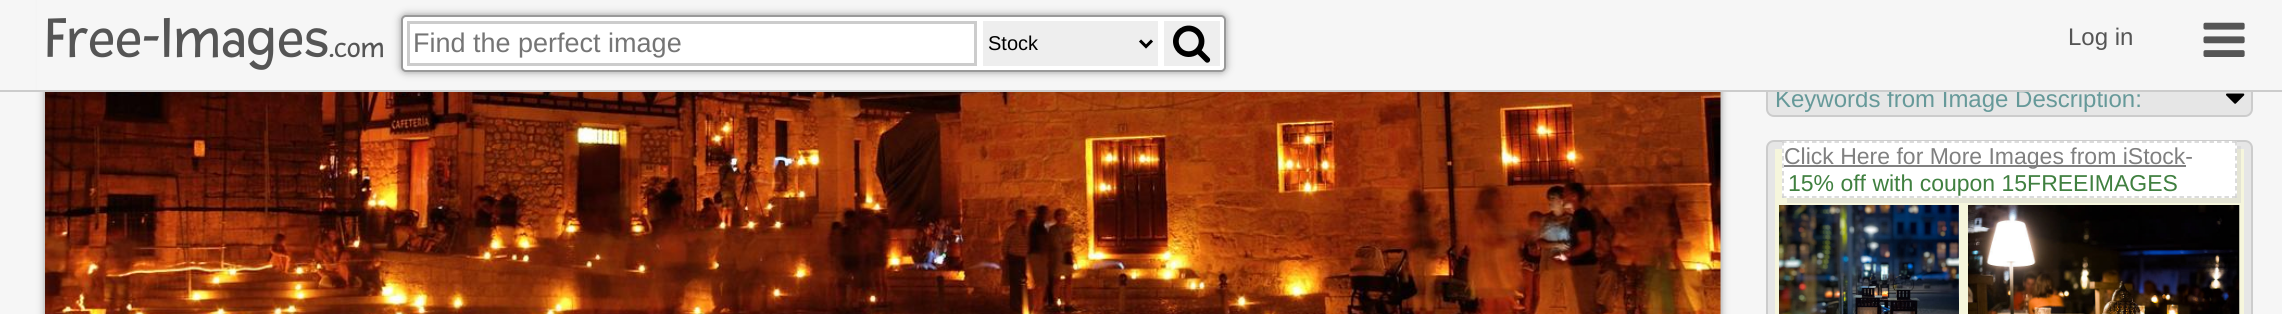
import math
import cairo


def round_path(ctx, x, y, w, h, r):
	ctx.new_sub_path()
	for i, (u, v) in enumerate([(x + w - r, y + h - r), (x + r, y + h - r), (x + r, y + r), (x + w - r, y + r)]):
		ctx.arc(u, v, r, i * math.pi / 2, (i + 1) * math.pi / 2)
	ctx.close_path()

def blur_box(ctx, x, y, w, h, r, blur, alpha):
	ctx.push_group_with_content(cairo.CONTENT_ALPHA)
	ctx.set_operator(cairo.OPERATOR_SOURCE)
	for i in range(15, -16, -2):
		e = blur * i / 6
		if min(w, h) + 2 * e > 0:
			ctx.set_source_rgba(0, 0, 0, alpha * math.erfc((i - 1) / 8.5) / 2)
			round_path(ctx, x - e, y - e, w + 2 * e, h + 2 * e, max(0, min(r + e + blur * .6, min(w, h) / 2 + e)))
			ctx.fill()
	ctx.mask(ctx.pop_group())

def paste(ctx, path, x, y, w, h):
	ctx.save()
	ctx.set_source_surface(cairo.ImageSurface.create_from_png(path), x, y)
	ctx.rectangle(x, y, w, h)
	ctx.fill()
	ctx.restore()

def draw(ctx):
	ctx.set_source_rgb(0.961, 0.961, 0.961)
	ctx.paint()
	ctx.set_source_rgb(0.6, 0.6, 0.6)
	blur_box(ctx, 45, -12, 1676, 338, 0, 4, 1)
	ctx.set_source_rgb(0.902, 0.902, 0.902)
	round_path(ctx, 1767, 78, 485, 38, 7)
	ctx.fill_preserve()
	ctx.set_source_rgb(0.8, 0.8, 0.8)
	ctx.stroke()
	ctx.select_font_face('Liberation Sans')
	ctx.set_font_size(24)
	ctx.set_source_rgb(0.4, 0.6, 0.6)
	ctx.move_to(1775, 107)
	ctx.show_text('Keywords from Image Description:')
	ctx.set_source_rgb(0.961, 0.961, 0.961)
	ctx.rectangle(37, 0, 2216, 90)
	ctx.fill()
	ctx.set_source_rgb(0.8, 0.8, 0.8)
	ctx.rectangle(0, 90, 2282, 2)
	ctx.fill()
	ctx.select_font_face('Fresca')
	ctx.set_font_size(60)
	ctx.set_source_rgb(0.333, 0.333, 0.333)
	ctx.move_to(45, 57)
	ctx.show_text('Free-Images')
	ctx.set_font_size(30)
	ctx.move_to(329, 57)
	ctx.show_text('.com')
	ctx.set_source_rgb(0.6, 0.6, 0.6)
	blur_box(ctx, 401, 15, 825, 57, 5, 4, 1)
	ctx.set_source_rgb(1, 1, 1)
	round_path(ctx, 402, 16, 823, 55, 4)
	ctx.fill_preserve()
	ctx.set_source_rgb(0.6, 0.6, 0.6)
	ctx.stroke()
	ctx.rectangle(408.5, 22.5, 567, 42)
	ctx.set_source_rgb(0.8, 0.8, 0.8)
	ctx.set_line_width(3)
	ctx.stroke()
	ctx.select_font_face('Liberation Sans')
	ctx.set_font_size(27)
	ctx.set_source_rgb(0.459, 0.459, 0.459)
	ctx.move_to(413, 52)
	ctx.show_text('Find the perfect image')
	ctx.set_source_rgb(0.933, 0.933, 0.933)
	ctx.rectangle(983, 21, 175, 45)
	ctx.fill()
	ctx.new_path()
	ctx.move_to(1140, 40.5)
	ctx.line_to(1146, 46.5)
	ctx.line_to(1152, 40.5)
	ctx.set_source_rgb(0, 0, 0)
	ctx.stroke()
	ctx.set_font_size(20)
	ctx.move_to(988, 50)
	ctx.show_text('Stock')
	ctx.set_source_rgb(0.933, 0.933, 0.933)
	ctx.rectangle(1164, 21, 56, 45)
	ctx.fill()
	paste(ctx, 'media/1.png', 1173, 25, 38, 38)
	ctx.set_font_size(24)
	ctx.set_source_rgb(0.333, 0.333, 0.333)
	ctx.move_to(2068, 45)
	ctx.show_text('Log in')
	paste(ctx, 'media/2.png', 2203, 22, 42, 35)
	paste(ctx, 'media/3.png', 45, 92, 1676, 222)
	paste(ctx, 'media/4.png', 2226, 93, 19, 11)
	ctx.set_source_rgb(0.902, 0.902, 0.902)
	round_path(ctx, 1767, 141, 485, 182, 7)
	ctx.fill_preserve()
	ctx.set_source_rgb(0.8, 0.8, 0.8)
	ctx.set_line_width(2)
	ctx.stroke()
	ctx.set_source_rgb(0.961, 0.961, 0.863)
	ctx.rectangle(1775, 149, 469, 165)
	ctx.fill()
	ctx.set_source_rgba(0.8, 0.8, 0.8, 0.38)
	ctx.new_path()
	ctx.move_to(1787, 198)
	ctx.line_to(1787, 203)
	ctx.line_to(2241, 203)
	ctx.line_to(2241, 146)
	ctx.line_to(2236, 146)
	ctx.line_to(2236, 198)
	ctx.close_path()
	ctx.fill()
	ctx.set_source_rgb(1, 1, 1)
	ctx.rectangle(1782, 141, 455, 57)
	ctx.fill()
	ctx.new_path()
	ctx.move_to(1782, 142)
	ctx.line_to(2236.5, 142)
	ctx.set_source_rgb(0.816, 0.816, 0.816)
	ctx.set_line_width(1.5)
	ctx.set_dash([4.5, 3])
	ctx.stroke()
	ctx.new_path()
	ctx.move_to(2236, 141)
	ctx.line_to(2236, 198)
	ctx.stroke()
	ctx.new_path()
	ctx.move_to(1782, 197)
	ctx.line_to(2236.5, 197)
	ctx.stroke()
	ctx.new_path()
	ctx.move_to(1783, 141)
	ctx.line_to(1783, 198)
	ctx.stroke()
	ctx.set_source_rgb(0.502, 0.502, 0.502)
	ctx.rectangle(1784, 165, 402, 2)
	ctx.fill()
	ctx.set_font_size(23)
	ctx.move_to(1784, 164)
	ctx.show_text('Click Here for More Images from iStock-')
	ctx.set_source_rgb(0.251, 0.502, 0.251)
	ctx.move_to(1788, 191)
	ctx.show_text('15% off with coupon 15FREEIMAGES')
	paste(ctx, 'media/5.png', 1779, 205, 180, 109)
	paste(ctx, 'media/6.png', 1968, 205, 272, 109)


surface = cairo.ImageSurface(cairo.FORMAT_RGB24, 2282, 314)
ctx = cairo.Context(surface)
options = cairo.FontOptions()
options.set_hint_metrics(cairo.HINT_METRICS_OFF)
options.set_hint_style(cairo.HINT_STYLE_NONE)
ctx.set_font_options(options)
ctx.set_miter_limit(4)
draw(ctx)
surface.write_to_png('image.png')
